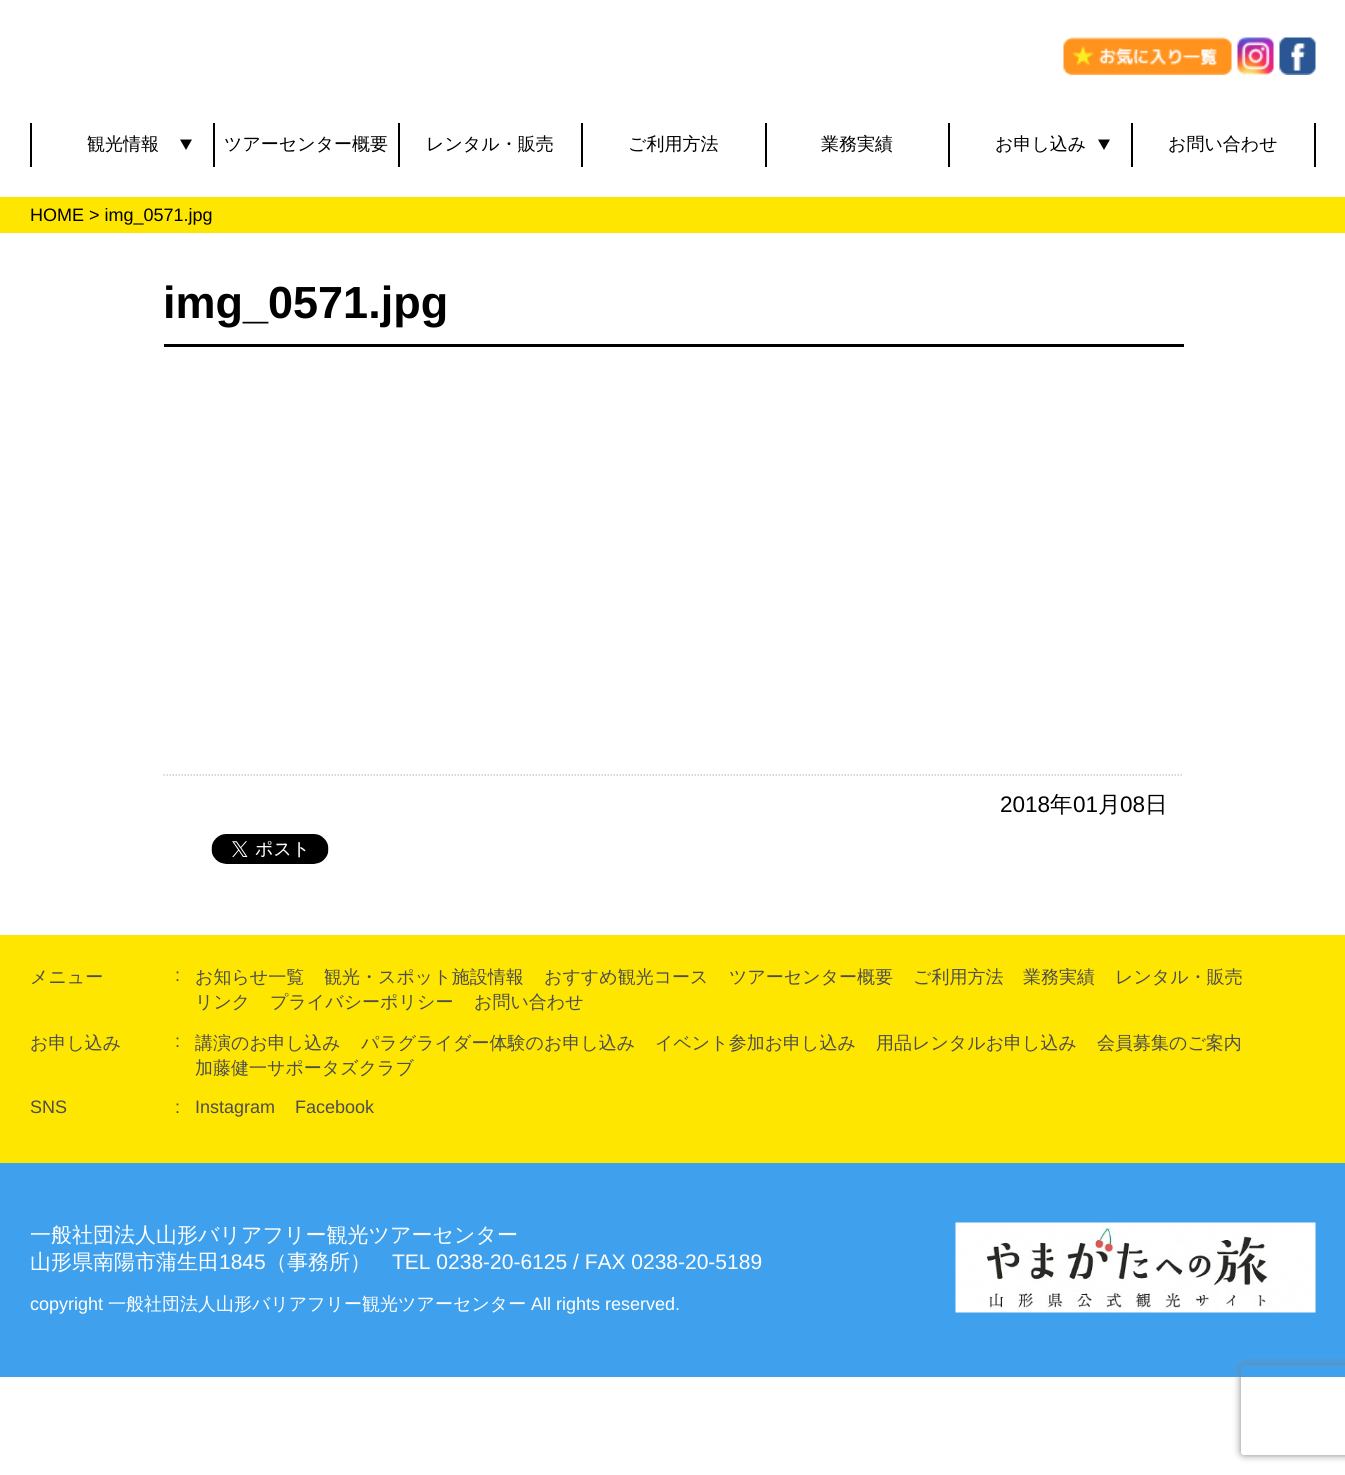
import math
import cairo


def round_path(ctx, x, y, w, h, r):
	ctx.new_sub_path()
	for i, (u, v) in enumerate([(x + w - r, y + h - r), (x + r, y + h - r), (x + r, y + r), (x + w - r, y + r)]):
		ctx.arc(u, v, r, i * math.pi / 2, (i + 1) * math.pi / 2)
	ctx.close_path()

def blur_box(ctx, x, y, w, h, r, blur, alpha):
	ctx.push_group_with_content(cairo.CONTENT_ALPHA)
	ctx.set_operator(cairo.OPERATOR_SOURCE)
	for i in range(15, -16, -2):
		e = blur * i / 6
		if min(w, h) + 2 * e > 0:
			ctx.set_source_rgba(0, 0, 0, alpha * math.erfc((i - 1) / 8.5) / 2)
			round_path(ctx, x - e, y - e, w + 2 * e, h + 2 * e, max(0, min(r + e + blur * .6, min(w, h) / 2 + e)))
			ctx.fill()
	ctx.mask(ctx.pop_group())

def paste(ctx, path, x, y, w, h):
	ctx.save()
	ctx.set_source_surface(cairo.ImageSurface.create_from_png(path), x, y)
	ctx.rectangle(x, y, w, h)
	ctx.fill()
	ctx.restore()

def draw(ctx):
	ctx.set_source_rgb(1, 1, 1)
	ctx.paint()
	paste(ctx, 'media/1.png', 1063, 37, 169, 38)
	paste(ctx, 'media/2.png', 1237, 37, 37, 38)
	paste(ctx, 'media/3.png', 1279, 37, 37, 38)
	ctx.set_source_rgb(0, 0, 0)
	ctx.rectangle(30, 123, 2, 44)
	ctx.fill()
	ctx.select_font_face('WenQuanYi Zen Hei Medium')
	ctx.set_font_size(18)
	ctx.move_to(87, 150)
	ctx.show_text('観光情報')
	ctx.new_path()
	ctx.move_to(180, 139.5)
	ctx.line_to(192, 139.5)
	ctx.line_to(186, 150)
	ctx.close_path()
	ctx.fill()
	ctx.rectangle(213, 123, 2, 44)
	ctx.fill()
	ctx.move_to(224, 150)
	ctx.show_text('ツアーセンター概要')
	ctx.rectangle(398, 123, 2, 44)
	ctx.fill()
	ctx.move_to(426, 150)
	ctx.show_text('レンタル・販売')
	ctx.rectangle(581, 123, 2, 44)
	ctx.fill()
	ctx.move_to(628, 150)
	ctx.show_text('ご利用方法')
	ctx.rectangle(765, 123, 2, 44)
	ctx.fill()
	ctx.move_to(821, 150)
	ctx.show_text('業務実績')
	ctx.rectangle(948, 123, 2, 44)
	ctx.fill()
	ctx.move_to(995, 150)
	ctx.show_text('お申し込み')
	ctx.new_path()
	ctx.move_to(1098, 139.5)
	ctx.line_to(1110, 139.5)
	ctx.line_to(1104, 150)
	ctx.close_path()
	ctx.fill()
	ctx.rectangle(1314, 123, 2, 44)
	ctx.fill()
	ctx.rectangle(1131, 123, 2, 44)
	ctx.fill()
	ctx.move_to(1168, 150)
	ctx.show_text('お問い合わせ')
	ctx.set_source_rgb(1, 0.902, 0)
	ctx.rectangle(0, 197, 1345, 36)
	ctx.fill()
	ctx.select_font_face('Liberation Sans')
	ctx.set_source_rgb(0, 0, 0)
	ctx.move_to(30, 221)
	ctx.show_text('HOME > img_0571.jpg')
	ctx.rectangle(164, 344, 1020, 3)
	ctx.fill()
	ctx.select_font_face('Liberation Sans', cairo.FONT_SLANT_NORMAL, cairo.FONT_WEIGHT_BOLD)
	ctx.set_font_size(45)
	ctx.move_to(163, 318)
	ctx.show_text('img_0571.jpg')
	ctx.new_path()
	ctx.move_to(163.5, 775)
	ctx.line_to(1183.5, 775)
	ctx.set_source_rgb(0.8, 0.8, 0.8)
	ctx.set_line_width(1.5)
	ctx.set_dash([1.5, 1.5])
	ctx.stroke()
	ctx.select_font_face('Liberation Sans')
	ctx.set_font_size(22.5)
	ctx.set_source_rgb(0, 0, 0)
	ctx.move_to(1000, 812)
	ctx.show_text('2018')
	ctx.select_font_face('WenQuanYi Zen Hei Medium')
	ctx.move_to(1050, 812)
	ctx.show_text('年')
	ctx.select_font_face('Liberation Sans')
	ctx.move_to(1073, 812)
	ctx.show_text('01')
	ctx.select_font_face('WenQuanYi Zen Hei Medium')
	ctx.move_to(1098, 812)
	ctx.show_text('月')
	ctx.select_font_face('Liberation Sans')
	ctx.move_to(1120, 812)
	ctx.show_text('08')
	ctx.select_font_face('WenQuanYi Zen Hei Medium')
	ctx.move_to(1145, 812)
	ctx.show_text('日')
	paste(ctx, 'media/4.png', 211, 834, 118, 30)
	ctx.set_source_rgb(1, 0.902, 0)
	ctx.rectangle(0, 935, 1345, 228)
	ctx.fill()
	ctx.set_font_size(18)
	ctx.set_source_rgb(0.302, 0.302, 0.302)
	ctx.move_to(30, 983)
	ctx.show_text('メニュー')
	ctx.select_font_face('Liberation Sans')
	ctx.move_to(175, 981)
	ctx.show_text(':')
	ctx.select_font_face('WenQuanYi Zen Hei Medium')
	for x, y, s in [
		(195, 983, 'お知らせ一覧'),
		(324, 983, '観光・スポット施設情報'),
		(544, 983, 'おすすめ観光コース'),
		(729, 983, 'ツアーセンター概要'),
		(913, 983, 'ご利用方法'),
		(1023, 983, '業務実績'),
		(1115, 983, 'レンタル・販売'),
		(195, 1008, 'リンク'),
		(270, 1008, 'プライバシーポリシー'),
		(474, 1008, 'お問い合わせ'),
		(30, 1049, 'お申し込み'),
	]:
		ctx.move_to(x, y)
		ctx.show_text(s)
	ctx.select_font_face('Liberation Sans')
	ctx.move_to(175, 1047)
	ctx.show_text(':')
	ctx.select_font_face('WenQuanYi Zen Hei Medium')
	for x, y, s in [
		(195, 1049, '講演のお申し込み'),
		(361, 1049, 'パラグライダー体験のお申し込み'),
		(655, 1049, 'イベント参加お申し込み'),
		(876, 1049, '用品レンタルお申し込み'),
		(1097, 1049, '会員募集のご案内'),
		(195, 1074, '加藤健一サポータズクラブ'),
	]:
		ctx.move_to(x, y)
		ctx.show_text(s)
	ctx.select_font_face('Liberation Sans')
	for x, y, s in [
		(30, 1113, 'SNS'),
		(175, 1113, ':'),
		(195, 1113, 'Instagram'),
		(295, 1113, 'Facebook'),
	]:
		ctx.move_to(x, y)
		ctx.show_text(s)
	ctx.set_source_rgb(0.247, 0.631, 0.929)
	ctx.rectangle(0, 1163, 1345, 214)
	ctx.fill()
	ctx.select_font_face('WenQuanYi Zen Hei Medium')
	ctx.set_font_size(21)
	ctx.set_source_rgb(1, 1, 1)
	ctx.move_to(30, 1242)
	ctx.show_text('一般社団法人山形バリアフリー観光ツアーセンター')
	ctx.move_to(30, 1269)
	ctx.show_text('山形県南陽市蒲生田')
	ctx.select_font_face('Liberation Sans')
	ctx.move_to(219, 1269)
	ctx.show_text('1845')
	ctx.select_font_face('WenQuanYi Zen Hei Medium')
	ctx.move_to(266, 1269)
	ctx.show_text('（事務所）')
	ctx.select_font_face('Liberation Sans')
	ctx.move_to(392, 1269)
	ctx.show_text('TEL 0238-20-6125 / FAX 0238-20-5189')
	ctx.set_font_size(18)
	ctx.move_to(30, 1310)
	ctx.show_text('copyright')
	ctx.select_font_face('WenQuanYi Zen Hei Medium')
	ctx.move_to(108, 1310)
	ctx.show_text('一般社団法人山形バリアフリー観光ツアーセンター')
	ctx.select_font_face('Liberation Sans')
	ctx.move_to(531, 1310)
	ctx.show_text('All rights reserved.')
	paste(ctx, 'media/5.png', 955, 1222, 361, 91)
	ctx.save()
	ctx.set_fill_rule(cairo.FILL_RULE_EVEN_ODD)
	ctx.new_path()
	ctx.move_to(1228, 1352)
	ctx.line_to(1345, 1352)
	ctx.line_to(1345, 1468)
	ctx.line_to(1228, 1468)
	ctx.close_path()
	ctx.move_to(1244, 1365)
	ctx.line_to(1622, 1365)
	ctx.curve_to(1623.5, 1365, 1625, 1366.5, 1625, 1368)
	ctx.line_to(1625, 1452)
	ctx.curve_to(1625, 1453.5, 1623.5, 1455, 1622, 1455)
	ctx.line_to(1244, 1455)
	ctx.curve_to(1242.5, 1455, 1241, 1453.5, 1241, 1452)
	ctx.line_to(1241, 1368)
	ctx.curve_to(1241, 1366.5, 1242.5, 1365, 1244, 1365)
	ctx.close_path()
	ctx.clip()
	ctx.set_source_rgb(0.502, 0.502, 0.502)
	blur_box(ctx, 1241, 1365, 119, 90, 3, 4, 1)
	ctx.restore()


surface = cairo.ImageSurface(cairo.FORMAT_RGB24, 1345, 1475)
ctx = cairo.Context(surface)
options = cairo.FontOptions()
options.set_hint_metrics(cairo.HINT_METRICS_OFF)
options.set_hint_style(cairo.HINT_STYLE_NONE)
ctx.set_font_options(options)
ctx.set_miter_limit(4)
draw(ctx)
surface.write_to_png('image.png')
